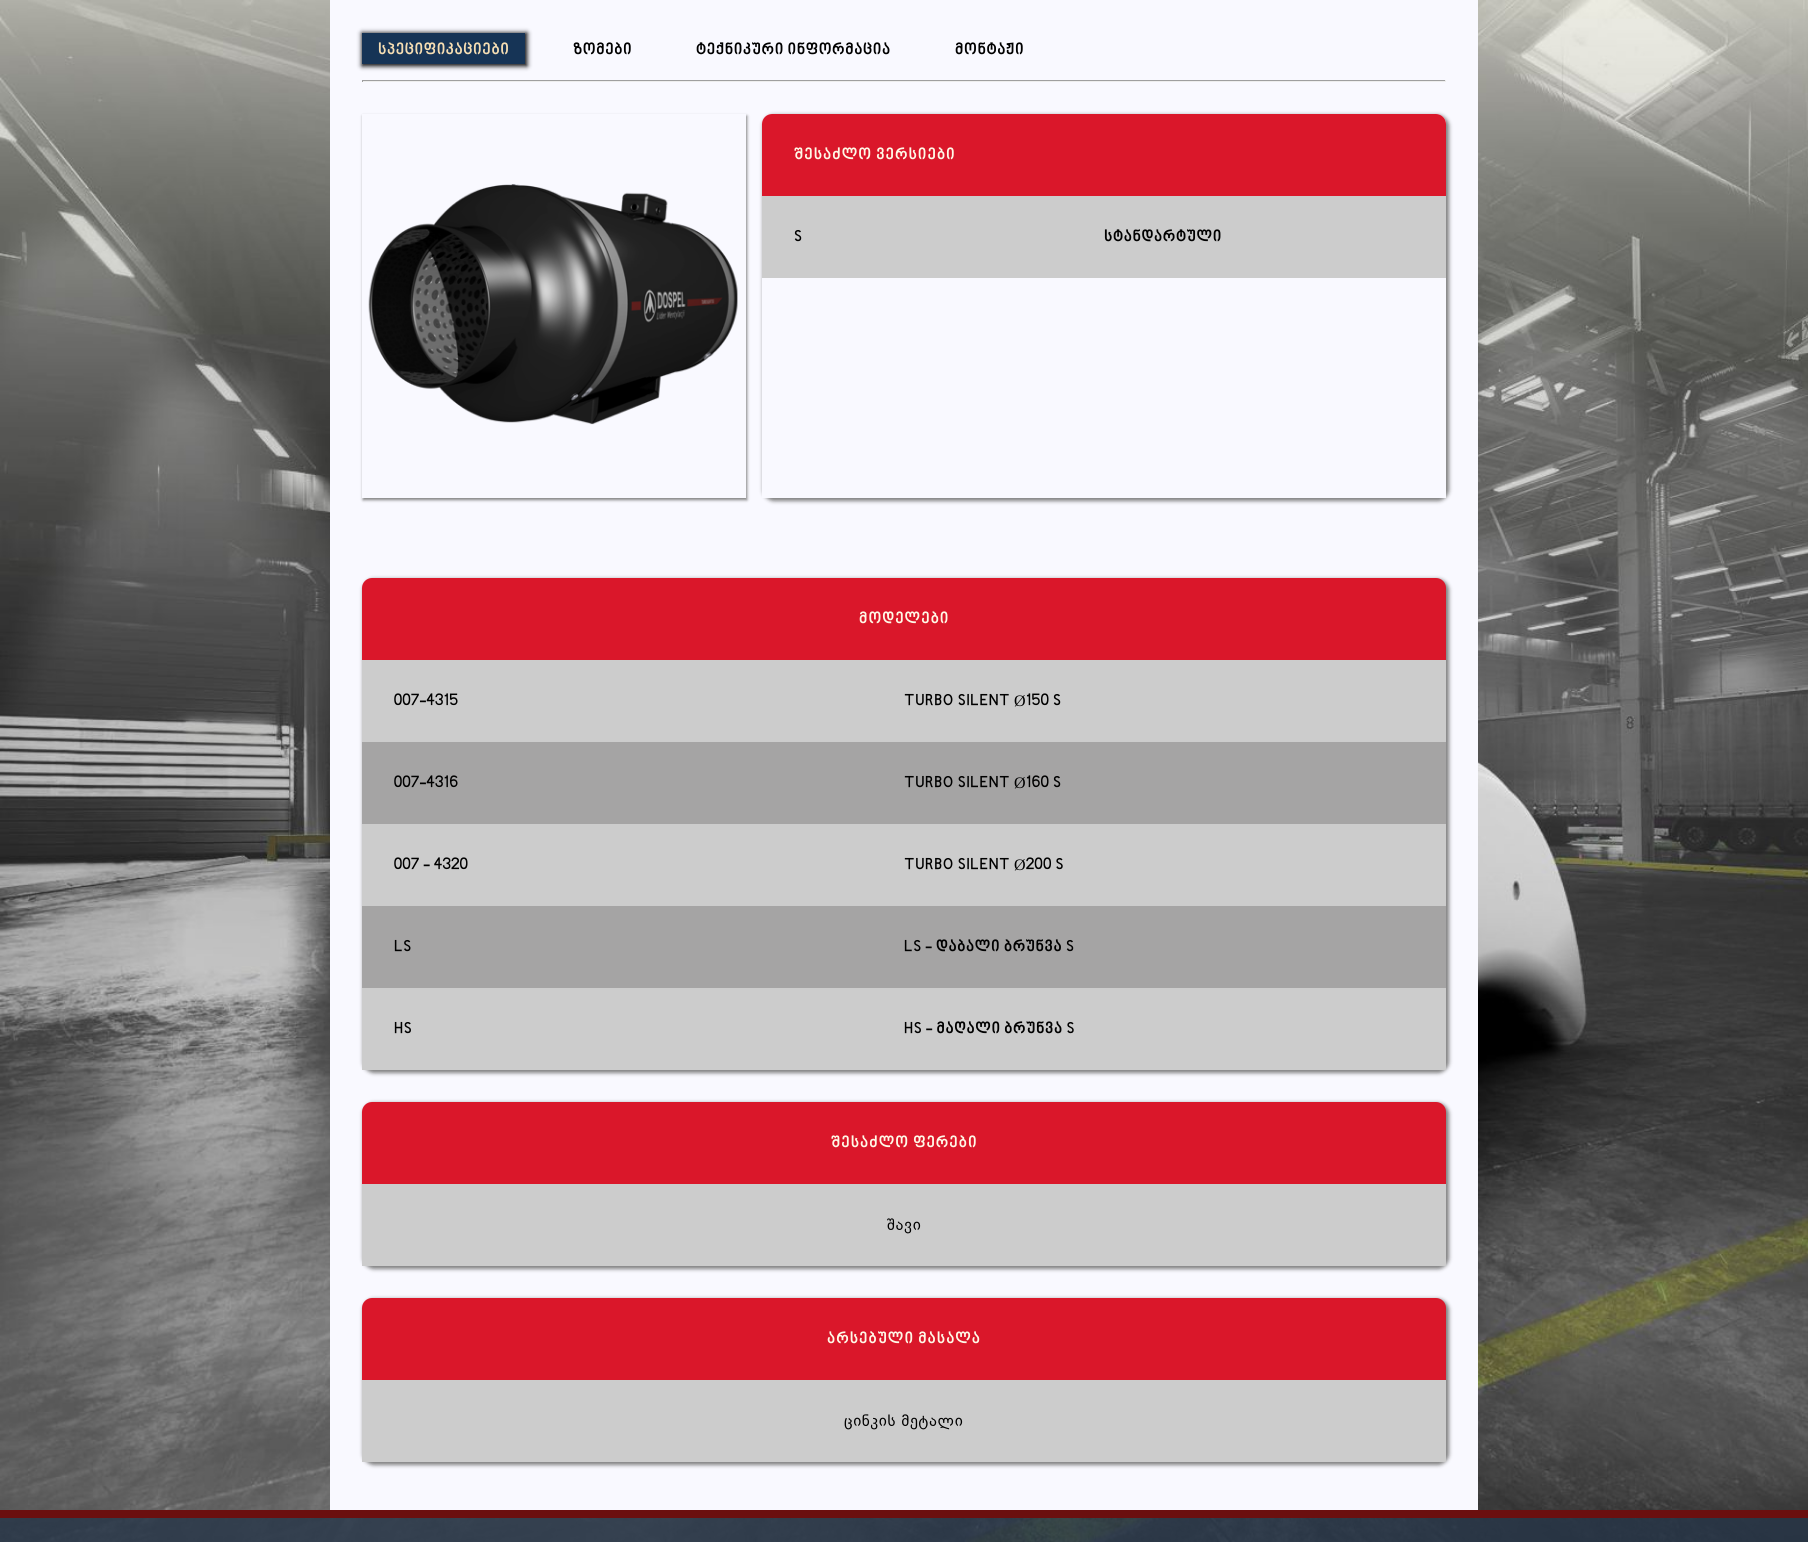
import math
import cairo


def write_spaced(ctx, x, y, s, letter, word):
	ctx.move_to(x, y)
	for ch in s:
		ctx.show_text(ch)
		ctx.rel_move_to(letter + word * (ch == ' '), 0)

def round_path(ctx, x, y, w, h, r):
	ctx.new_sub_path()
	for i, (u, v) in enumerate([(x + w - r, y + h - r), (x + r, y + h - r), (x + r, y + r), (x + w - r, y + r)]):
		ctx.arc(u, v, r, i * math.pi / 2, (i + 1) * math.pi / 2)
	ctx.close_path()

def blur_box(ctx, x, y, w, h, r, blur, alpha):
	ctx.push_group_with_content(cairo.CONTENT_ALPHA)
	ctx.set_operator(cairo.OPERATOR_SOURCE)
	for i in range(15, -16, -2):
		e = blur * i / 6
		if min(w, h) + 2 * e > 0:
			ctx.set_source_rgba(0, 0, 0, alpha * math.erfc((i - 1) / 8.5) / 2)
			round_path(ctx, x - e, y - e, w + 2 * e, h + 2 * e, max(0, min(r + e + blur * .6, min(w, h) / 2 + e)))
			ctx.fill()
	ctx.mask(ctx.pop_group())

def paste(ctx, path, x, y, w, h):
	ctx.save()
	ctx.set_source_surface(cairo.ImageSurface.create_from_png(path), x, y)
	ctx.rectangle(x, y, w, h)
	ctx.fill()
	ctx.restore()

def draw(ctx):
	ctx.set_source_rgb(1, 1, 1)
	ctx.paint()
	paste(ctx, 'media/1.png', 0, 0, 1808, 1542)
	ctx.set_source_rgb(0.973, 0.973, 1)
	ctx.rectangle(330, 0, 1148, 1510)
	ctx.fill()
	ctx.set_source_rgb(0, 0, 0)
	blur_box(ctx, 362, 33, 165, 33, 0, 2.5, 1)
	ctx.set_source_rgb(0.086, 0.204, 0.337)
	ctx.rectangle(362, 33, 163, 31)
	ctx.fill()
	ctx.select_font_face('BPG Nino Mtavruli', cairo.FONT_SLANT_NORMAL, cairo.FONT_WEIGHT_BOLD)
	ctx.set_font_size(16)
	ctx.set_source_rgb(0.961, 0.871, 0.702)
	write_spaced(ctx, 378, 55, 'სპეციფიკაციები', 0.6, 0)
	ctx.set_source_rgb(0, 0, 0)
	for x, y, s in [
		(573, 55, 'ზომები'),
		(696, 55, 'ტექნიკური ინფორმაცია'),
		(955, 55, 'მონტაჟი'),
	]:
		write_spaced(ctx, x, y, s, 0.6, 0)
	ctx.set_source_rgb(0.624, 0.624, 0.624)
	ctx.rectangle(362, 80, 1084, 1)
	ctx.fill()
	ctx.set_source_rgb(0.933, 0.933, 0.933)
	ctx.rectangle(1445, 80, 1, 2)
	ctx.rectangle(362, 81, 1084, 1)
	ctx.fill()
	ctx.set_source_rgb(0.624, 0.624, 0.624)
	ctx.rectangle(362, 80, 1, 2)
	ctx.fill()
	ctx.save()
	ctx.set_fill_rule(cairo.FILL_RULE_EVEN_ODD)
	ctx.new_path()
	ctx.move_to(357, 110)
	ctx.line_to(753, 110)
	ctx.line_to(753, 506)
	ctx.line_to(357, 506)
	ctx.close_path()
	ctx.move_to(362, 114)
	ctx.line_to(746, 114)
	ctx.line_to(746, 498)
	ctx.line_to(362, 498)
	ctx.close_path()
	ctx.clip()
	ctx.set_source_rgb(0.502, 0.502, 0.502)
	blur_box(ctx, 363, 116, 384, 384, 0, 1.5, 1)
	ctx.restore()
	paste(ctx, 'media/2.png', 368, 184, 370, 241)
	ctx.save()
	ctx.set_fill_rule(cairo.FILL_RULE_EVEN_ODD)
	ctx.new_path()
	ctx.move_to(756, 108)
	ctx.line_to(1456, 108)
	ctx.line_to(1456, 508)
	ctx.line_to(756, 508)
	ctx.close_path()
	ctx.move_to(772, 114)
	ctx.line_to(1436, 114)
	ctx.curve_to(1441.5, 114, 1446, 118.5, 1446, 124)
	ctx.line_to(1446, 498)
	ctx.line_to(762, 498)
	ctx.line_to(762, 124)
	ctx.curve_to(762, 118.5, 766.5, 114, 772, 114)
	ctx.close_path()
	ctx.clip()
	ctx.set_source_rgb(0.502, 0.502, 0.502)
	blur_box(ctx, 763, 115, 686, 386, 11, 2, 1)
	ctx.restore()
	ctx.set_source_rgb(0.855, 0.09, 0.165)
	ctx.new_path()
	ctx.move_to(772, 114)
	ctx.line_to(1436, 114)
	ctx.curve_to(1441.5, 114, 1446, 118.5, 1446, 124)
	ctx.line_to(1446, 196)
	ctx.line_to(762, 196)
	ctx.line_to(762, 124)
	ctx.curve_to(762, 118.5, 766.5, 114, 772, 114)
	ctx.close_path()
	ctx.fill()
	ctx.set_source_rgb(1, 0.973, 0.906)
	write_spaced(ctx, 794, 160, 'შესაძლო ვერსიები', 1, 0)
	ctx.set_source_rgb(0.8, 0.8, 0.8)
	ctx.rectangle(762, 196, 684, 82)
	ctx.fill()
	ctx.set_source_rgb(0, 0, 0)
	write_spaced(ctx, 794, 242, 'S', 0.6, 0)
	write_spaced(ctx, 1104, 242, 'სტანდარტული', 0.6, 0)
	ctx.set_source_rgb(0.502, 0.502, 0.502)
	blur_box(ctx, 363, 579, 1086, 494, 11, 2, 1)
	ctx.set_source_rgb(0.855, 0.09, 0.165)
	ctx.new_path()
	ctx.move_to(372, 578)
	ctx.line_to(1436, 578)
	ctx.curve_to(1441.5, 578, 1446, 582.5, 1446, 588)
	ctx.line_to(1446, 660)
	ctx.line_to(362, 660)
	ctx.line_to(362, 588)
	ctx.curve_to(362, 582.5, 366.5, 578, 372, 578)
	ctx.close_path()
	ctx.fill()
	ctx.set_source_rgb(1, 0.973, 0.906)
	write_spaced(ctx, 859, 624, 'მოდელები', 1, 0)
	ctx.set_source_rgb(0.8, 0.8, 0.8)
	ctx.rectangle(362, 660, 1084, 82)
	ctx.fill()
	ctx.set_source_rgb(0, 0, 0)
	write_spaced(ctx, 394, 706, '007-4315', 0.6, 0)
	write_spaced(ctx, 904, 706, 'TURBO SILENT', 0.6, 0)
	ctx.select_font_face('Liberation Serif')
	write_spaced(ctx, 1014, 706, 'Ø', 0.6, 0)
	ctx.select_font_face('BPG Nino Mtavruli', cairo.FONT_SLANT_NORMAL, cairo.FONT_WEIGHT_BOLD)
	write_spaced(ctx, 1026, 706, '150 S', 0.6, 0)
	ctx.set_source_rgb(0.647, 0.643, 0.643)
	ctx.rectangle(362, 742, 1084, 82)
	ctx.fill()
	ctx.set_source_rgb(0, 0, 0)
	write_spaced(ctx, 394, 788, '007-4316', 0.6, 0)
	write_spaced(ctx, 904, 788, 'TURBO SILENT', 0.6, 0)
	ctx.select_font_face('Liberation Serif')
	write_spaced(ctx, 1014, 788, 'Ø', 0.6, 0)
	ctx.select_font_face('BPG Nino Mtavruli', cairo.FONT_SLANT_NORMAL, cairo.FONT_WEIGHT_BOLD)
	write_spaced(ctx, 1026, 788, '160 S', 0.6, 0)
	ctx.set_source_rgb(0.8, 0.8, 0.8)
	ctx.rectangle(362, 824, 1084, 82)
	ctx.fill()
	ctx.set_source_rgb(0, 0, 0)
	write_spaced(ctx, 394, 870, '007 - 4320', 0.6, 0)
	write_spaced(ctx, 904, 870, 'TURBO SILENT', 0.6, 0)
	ctx.select_font_face('Liberation Serif')
	write_spaced(ctx, 1014, 870, 'Ø', 0.6, 0)
	ctx.select_font_face('BPG Nino Mtavruli', cairo.FONT_SLANT_NORMAL, cairo.FONT_WEIGHT_BOLD)
	write_spaced(ctx, 1026, 870, '200 S', 0.6, 0)
	ctx.set_source_rgb(0.647, 0.643, 0.643)
	ctx.rectangle(362, 906, 1084, 82)
	ctx.fill()
	ctx.set_source_rgb(0, 0, 0)
	write_spaced(ctx, 394, 952, 'LS', 0.6, 0)
	write_spaced(ctx, 904, 952, 'LS - დაბალი ბრუნვა S', 0.6, 0)
	ctx.set_source_rgb(0.8, 0.8, 0.8)
	ctx.rectangle(362, 988, 1084, 82)
	ctx.fill()
	ctx.set_source_rgb(0, 0, 0)
	write_spaced(ctx, 394, 1034, 'HS', 0.6, 0)
	write_spaced(ctx, 904, 1034, 'HS - მაღალი ბრუნვა S', 0.6, 0)
	ctx.set_source_rgb(0.502, 0.502, 0.502)
	blur_box(ctx, 363, 1103, 1086, 166, 11, 2, 1)
	ctx.set_source_rgb(0.855, 0.09, 0.165)
	ctx.new_path()
	ctx.move_to(372, 1102)
	ctx.line_to(1436, 1102)
	ctx.curve_to(1441.5, 1102, 1446, 1106.5, 1446, 1112)
	ctx.line_to(1446, 1184)
	ctx.line_to(362, 1184)
	ctx.line_to(362, 1112)
	ctx.curve_to(362, 1106.5, 366.5, 1102, 372, 1102)
	ctx.close_path()
	ctx.fill()
	ctx.set_source_rgb(1, 0.973, 0.906)
	write_spaced(ctx, 831, 1148, 'შესაძლო ფერები', 1, 0)
	ctx.set_source_rgb(0.8, 0.8, 0.8)
	ctx.rectangle(362, 1184, 1084, 82)
	ctx.fill()
	ctx.select_font_face('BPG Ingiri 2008')
	ctx.set_source_rgb(0, 0, 0)
	write_spaced(ctx, 887, 1230, 'შავი', 0.6, 0)
	ctx.set_source_rgb(0.502, 0.502, 0.502)
	blur_box(ctx, 363, 1299, 1086, 166, 11, 2, 1)
	ctx.set_source_rgb(0.855, 0.09, 0.165)
	ctx.new_path()
	ctx.move_to(372, 1298)
	ctx.line_to(1436, 1298)
	ctx.curve_to(1441.5, 1298, 1446, 1302.5, 1446, 1308)
	ctx.line_to(1446, 1380)
	ctx.line_to(362, 1380)
	ctx.line_to(362, 1308)
	ctx.curve_to(362, 1302.5, 366.5, 1298, 372, 1298)
	ctx.close_path()
	ctx.fill()
	ctx.select_font_face('BPG Nino Mtavruli', cairo.FONT_SLANT_NORMAL, cairo.FONT_WEIGHT_BOLD)
	ctx.set_source_rgb(1, 0.973, 0.906)
	write_spaced(ctx, 827, 1344, 'არსებული მასალა', 1, 0)
	ctx.set_source_rgb(0.8, 0.8, 0.8)
	ctx.rectangle(362, 1380, 1084, 82)
	ctx.fill()
	ctx.select_font_face('BPG Ingiri 2008')
	ctx.set_source_rgb(0, 0, 0)
	write_spaced(ctx, 844, 1426, 'ცინკის მეტალი', 0.6, 0)
	ctx.set_source_rgba(0.153, 0.212, 0.282, 0.81)
	ctx.rectangle(0, 1518, 1808, 24)
	ctx.fill()
	ctx.set_source_rgb(0.42, 0.059, 0.059)
	ctx.rectangle(0, 1510, 1808, 8)
	ctx.fill()


surface = cairo.ImageSurface(cairo.FORMAT_RGB24, 1808, 1542)
ctx = cairo.Context(surface)
options = cairo.FontOptions()
options.set_hint_metrics(cairo.HINT_METRICS_OFF)
options.set_hint_style(cairo.HINT_STYLE_NONE)
ctx.set_font_options(options)
ctx.set_miter_limit(4)
draw(ctx)
surface.write_to_png('image.png')
